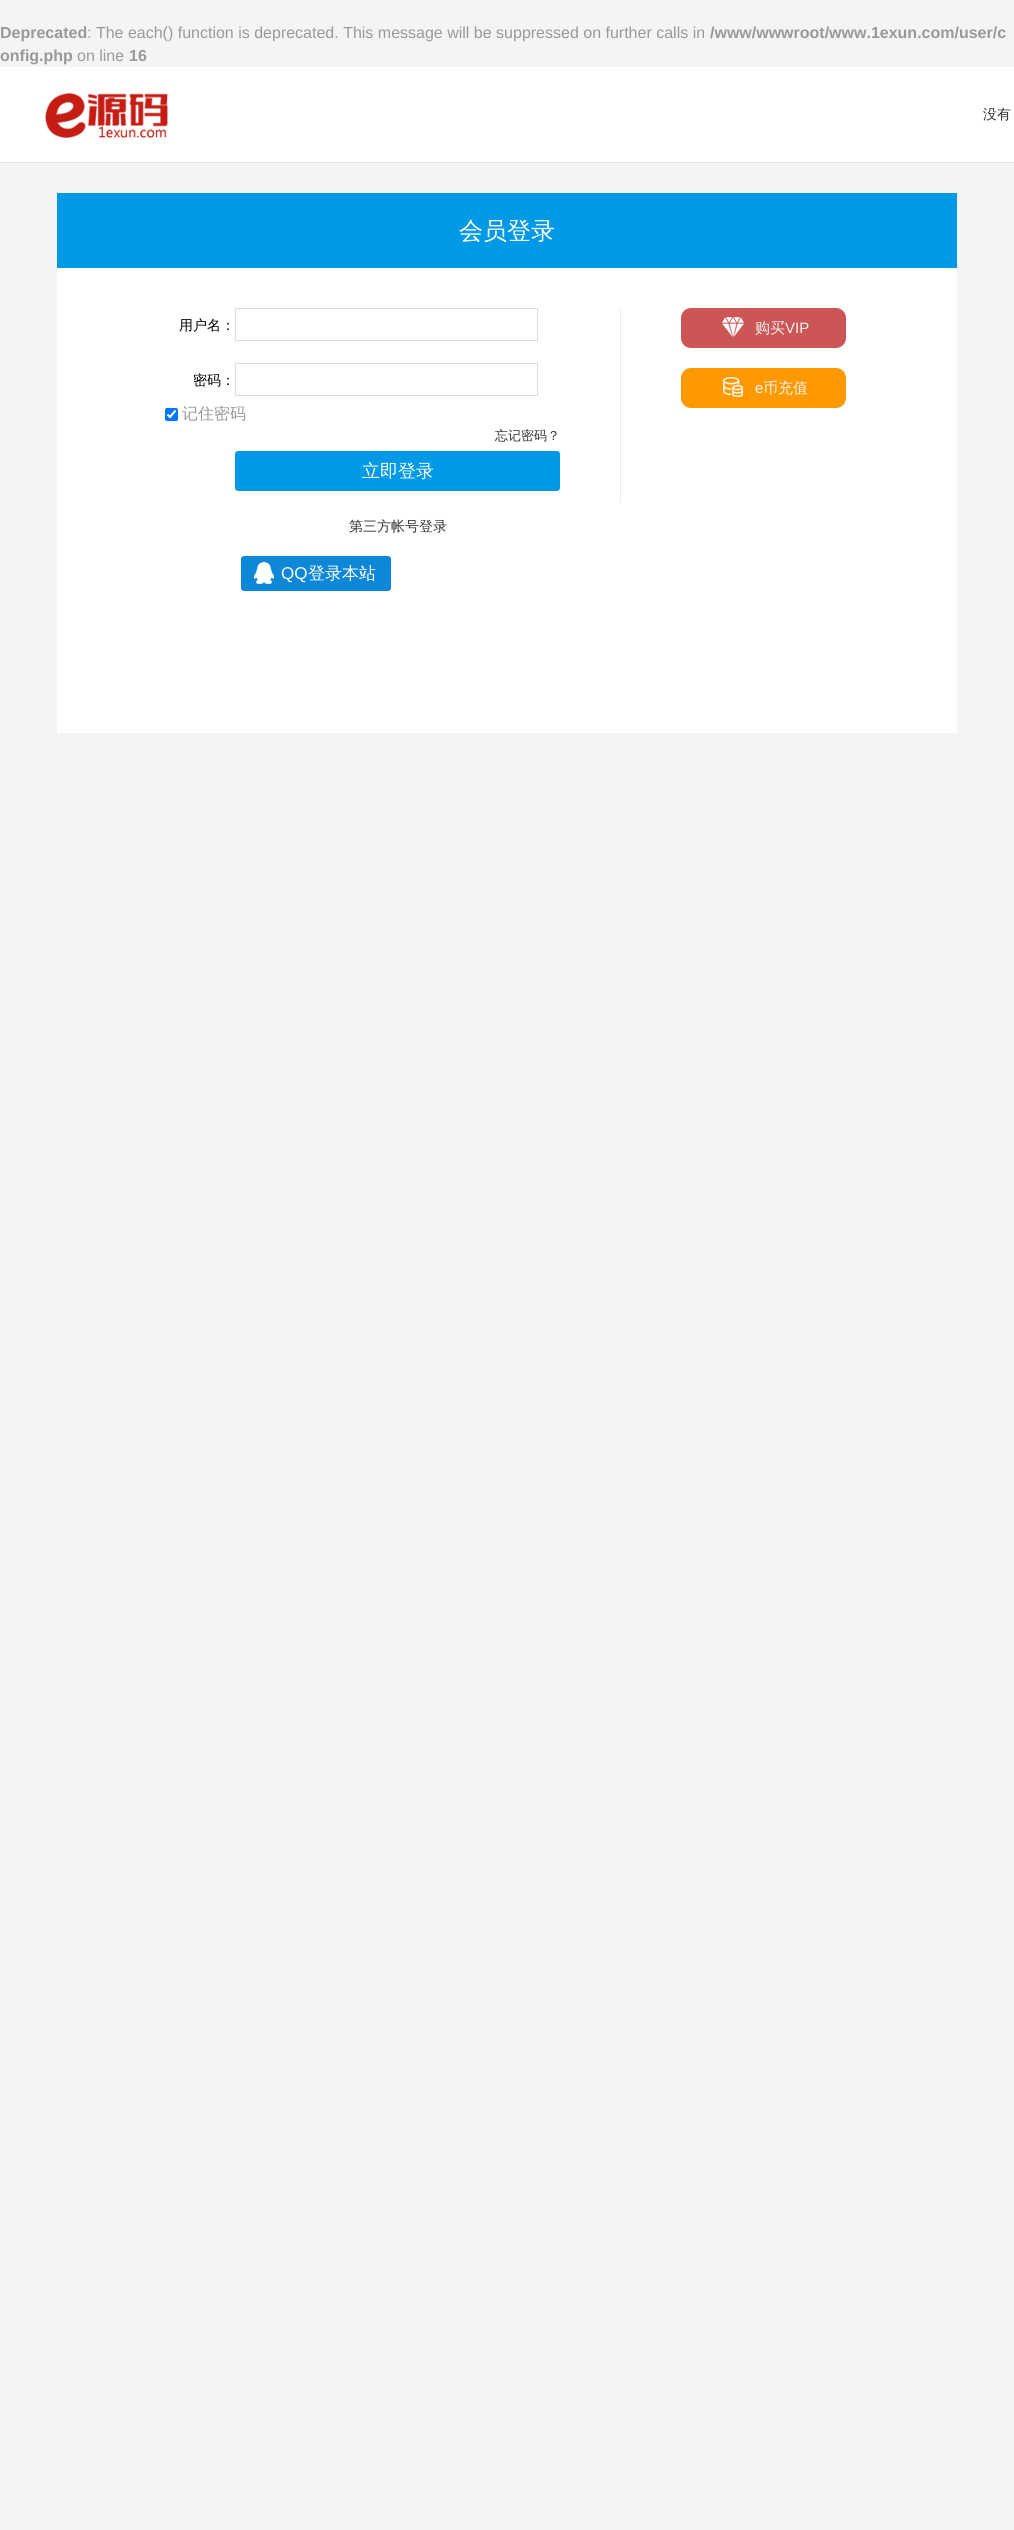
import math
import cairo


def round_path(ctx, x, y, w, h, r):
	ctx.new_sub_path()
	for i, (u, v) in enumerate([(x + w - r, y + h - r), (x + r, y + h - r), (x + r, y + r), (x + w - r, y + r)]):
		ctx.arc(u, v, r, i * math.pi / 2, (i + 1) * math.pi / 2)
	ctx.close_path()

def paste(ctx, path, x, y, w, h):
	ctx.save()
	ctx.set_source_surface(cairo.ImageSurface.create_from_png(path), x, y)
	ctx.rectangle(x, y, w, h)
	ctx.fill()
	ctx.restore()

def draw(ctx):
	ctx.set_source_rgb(0.957, 0.957, 0.957)
	ctx.paint()
	ctx.select_font_face('Liberation Sans', cairo.FONT_SLANT_NORMAL, cairo.FONT_WEIGHT_BOLD)
	ctx.set_font_size(16)
	ctx.set_source_rgb(0.6, 0.6, 0.6)
	ctx.move_to(0, 38)
	ctx.show_text('Deprecated')
	ctx.select_font_face('Liberation Sans')
	ctx.move_to(87, 38)
	ctx.show_text(': The each() function is deprecated. This message will be suppressed on further calls in')
	ctx.select_font_face('Liberation Sans', cairo.FONT_SLANT_NORMAL, cairo.FONT_WEIGHT_BOLD)
	ctx.move_to(710, 38)
	ctx.show_text('/www/wwwroot/www.1exun.com/user/c')
	ctx.move_to(0, 61)
	ctx.show_text('onfig.php')
	ctx.select_font_face('Liberation Sans')
	ctx.move_to(77, 61)
	ctx.show_text('on line')
	ctx.select_font_face('Liberation Sans', cairo.FONT_SLANT_NORMAL, cairo.FONT_WEIGHT_BOLD)
	ctx.move_to(129, 61)
	ctx.show_text('16')
	ctx.set_source_rgb(1, 1, 1)
	ctx.rectangle(0, 67, 1014, 95)
	ctx.fill()
	ctx.set_source_rgb(0.894, 0.894, 0.902)
	ctx.rectangle(0, 162, 1014, 1)
	ctx.fill()
	paste(ctx, 'media/1.png', 45, 93, 123, 45)
	ctx.select_font_face('WenQuanYi Zen Hei Medium')
	ctx.set_font_size(14)
	ctx.set_source_rgb(0.2, 0.2, 0.2)
	ctx.move_to(983, 119)
	ctx.show_text('没有')
	ctx.set_source_rgb(0, 0.6, 0.898)
	ctx.rectangle(57, 193, 900, 75)
	ctx.fill()
	ctx.set_font_size(24)
	ctx.set_source_rgb(1, 1, 1)
	ctx.move_to(459, 239)
	ctx.show_text('会员登录')
	ctx.rectangle(57, 268, 900, 465)
	ctx.fill()
	ctx.set_font_size(14)
	ctx.set_source_rgb(0, 0, 0)
	ctx.move_to(179, 330)
	ctx.show_text('用户名：')
	ctx.rectangle(235.5, 308.5, 302, 32)
	ctx.set_source_rgb(0.867, 0.867, 0.867)
	ctx.set_line_width(1)
	ctx.stroke()
	ctx.set_source_rgb(0, 0, 0)
	ctx.move_to(193, 385)
	ctx.show_text('密码：')
	ctx.rectangle(235.5, 363.5, 302, 32)
	ctx.set_source_rgb(0.867, 0.867, 0.867)
	ctx.stroke()
	ctx.set_source_rgb(0, 0.459, 1)
	round_path(ctx, 165, 408, 13, 13, 2)
	ctx.fill()
	ctx.new_path()
	ctx.move_to(167.5, 414.5)
	ctx.line_to(170, 417)
	ctx.line_to(175.5, 410.5)
	ctx.set_source_rgb(1, 1, 1)
	ctx.set_line_width(2.1)
	ctx.stroke()
	ctx.set_font_size(16)
	ctx.set_source_rgb(0.6, 0.6, 0.6)
	ctx.move_to(182, 419)
	ctx.show_text('记住密码')
	ctx.set_font_size(13)
	ctx.set_source_rgb(0.2, 0.2, 0.2)
	ctx.move_to(495, 440)
	ctx.show_text('忘记密码？')
	ctx.set_source_rgb(0, 0.6, 0.898)
	round_path(ctx, 235, 451, 325, 40, 3)
	ctx.fill()
	ctx.set_font_size(18)
	ctx.set_source_rgb(1, 1, 1)
	ctx.move_to(362, 477)
	ctx.show_text('立即登录')
	ctx.set_font_size(14)
	ctx.set_source_rgb(0.2, 0.2, 0.2)
	ctx.move_to(349, 531)
	ctx.show_text('第三方帐号登录')
	ctx.set_source_rgb(0.059, 0.529, 0.843)
	round_path(ctx, 241, 556, 150, 35, 3)
	ctx.fill()
	paste(ctx, 'media/2.png', 254, 562, 20, 22)
	ctx.select_font_face('Liberation Sans')
	ctx.set_font_size(17)
	ctx.set_source_rgb(1, 1, 1)
	ctx.move_to(281, 579)
	ctx.show_text('QQ')
	ctx.select_font_face('WenQuanYi Zen Hei Medium')
	ctx.move_to(308, 579)
	ctx.show_text('登录本站')
	ctx.set_source_rgb(0.933, 0.933, 0.933)
	ctx.rectangle(620, 308, 1, 195)
	ctx.fill()
	ctx.set_source_rgb(0.8, 0.333, 0.333)
	round_path(ctx, 681, 308, 165, 40, 10)
	ctx.fill()
	paste(ctx, 'media/3.png', 722, 317, 22, 20)
	ctx.set_font_size(15)
	ctx.set_source_rgb(0.949, 0.949, 0.949)
	ctx.move_to(755, 333)
	ctx.show_text('购买')
	ctx.select_font_face('Liberation Sans')
	ctx.move_to(785, 333)
	ctx.show_text('VIP')
	ctx.set_source_rgb(1, 0.6, 0)
	round_path(ctx, 681, 368, 165, 40, 10)
	ctx.fill()
	paste(ctx, 'media/4.png', 723, 377, 20, 20)
	ctx.set_source_rgb(0.949, 0.949, 0.949)
	ctx.move_to(755, 393)
	ctx.show_text('e')
	ctx.select_font_face('WenQuanYi Zen Hei Medium')
	ctx.move_to(763, 393)
	ctx.show_text('币充值')


surface = cairo.ImageSurface(cairo.FORMAT_RGB24, 1014, 2530)
ctx = cairo.Context(surface)
options = cairo.FontOptions()
options.set_hint_metrics(cairo.HINT_METRICS_OFF)
options.set_hint_style(cairo.HINT_STYLE_NONE)
ctx.set_font_options(options)
ctx.set_miter_limit(4)
draw(ctx)
surface.write_to_png('image.png')
